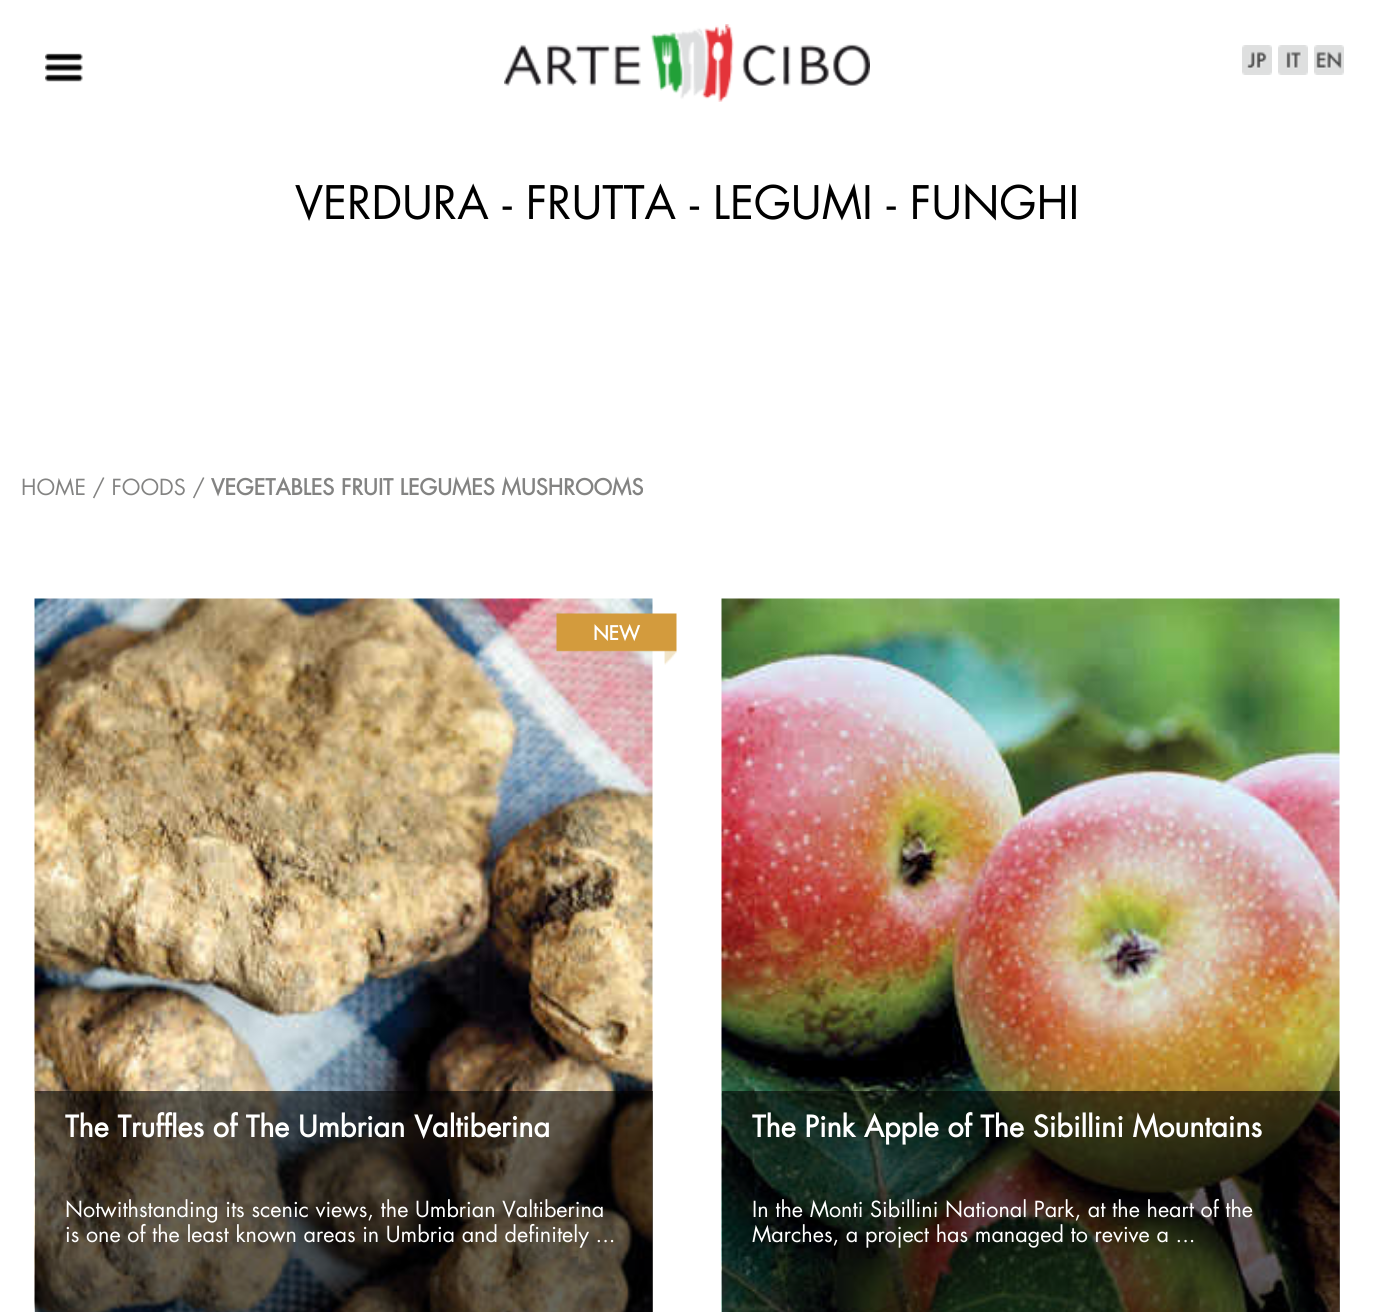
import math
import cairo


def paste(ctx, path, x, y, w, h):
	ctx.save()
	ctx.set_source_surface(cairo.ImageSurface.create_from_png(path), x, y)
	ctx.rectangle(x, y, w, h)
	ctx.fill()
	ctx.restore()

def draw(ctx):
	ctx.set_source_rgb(1, 1, 1)
	ctx.paint()
	paste(ctx, 'media/1.png', 45, 53, 38, 29)
	paste(ctx, 'media/2.png', 504, 24, 366, 78)
	paste(ctx, 'media/3.png', 1242, 45, 30, 30)
	paste(ctx, 'media/4.png', 1278, 45, 30, 30)
	paste(ctx, 'media/5.png', 1314, 45, 30, 30)
	ctx.select_font_face('Futura')
	ctx.set_font_size(45)
	ctx.set_source_rgb(0, 0, 0)
	ctx.move_to(295, 219)
	ctx.show_text('VERDURA - FRUTTA - LEGUMI - FUNGHI')
	ctx.set_font_size(21.6)
	ctx.set_source_rgb(0.514, 0.514, 0.51)
	ctx.move_to(21, 495)
	ctx.show_text('HOME / FOODS /')
	ctx.select_font_face('Futura', cairo.FONT_SLANT_NORMAL, cairo.FONT_WEIGHT_BOLD)
	ctx.move_to(211, 495)
	ctx.show_text('VEGETABLES FRUIT LEGUMES MUSHROOMS')
	paste(ctx, 'media/7.png', 34, 598, 619, 714)
	paste(ctx, 'media/6.png', 556, 613, 121, 52)
	ctx.set_font_size(19)
	ctx.set_source_rgb(1, 1, 1)
	ctx.move_to(593, 640)
	ctx.show_text('NEW')
	ctx.set_source_rgba(0, 0, 0, 0.6)
	ctx.rectangle(35, 1091, 618, 221)
	ctx.fill()
	ctx.set_font_size(28.75)
	ctx.set_source_rgb(1, 1, 1)
	ctx.move_to(65, 1137)
	ctx.show_text('The Truffles of The Umbrian Valtiberina')
	ctx.select_font_face('Futura')
	ctx.set_font_size(21.6)
	ctx.move_to(65, 1217)
	ctx.show_text('Notwithstanding its scenic views, the Umbrian Valtiberina')
	ctx.move_to(65, 1242)
	ctx.show_text('is one of the least known areas in Umbria and definitely ...')
	paste(ctx, 'media/8.png', 721, 598, 619, 714)
	ctx.set_source_rgba(0, 0, 0, 0.6)
	ctx.rectangle(722, 1091, 618, 221)
	ctx.fill()
	ctx.select_font_face('Futura', cairo.FONT_SLANT_NORMAL, cairo.FONT_WEIGHT_BOLD)
	ctx.set_font_size(28.75)
	ctx.set_source_rgb(1, 1, 1)
	ctx.move_to(752, 1137)
	ctx.show_text('The Pink Apple of The Sibillini Mountains')
	ctx.select_font_face('Futura')
	ctx.set_font_size(21.6)
	ctx.move_to(752, 1217)
	ctx.show_text('In the Monti Sibillini National Park, at the heart of the')
	ctx.move_to(752, 1242)
	ctx.show_text('Marches, a project has managed to revive a ...')


surface = cairo.ImageSurface(cairo.FORMAT_RGB24, 1374, 1312)
ctx = cairo.Context(surface)
options = cairo.FontOptions()
options.set_hint_metrics(cairo.HINT_METRICS_OFF)
options.set_hint_style(cairo.HINT_STYLE_NONE)
ctx.set_font_options(options)
ctx.set_miter_limit(4)
draw(ctx)
surface.write_to_png('image.png')
